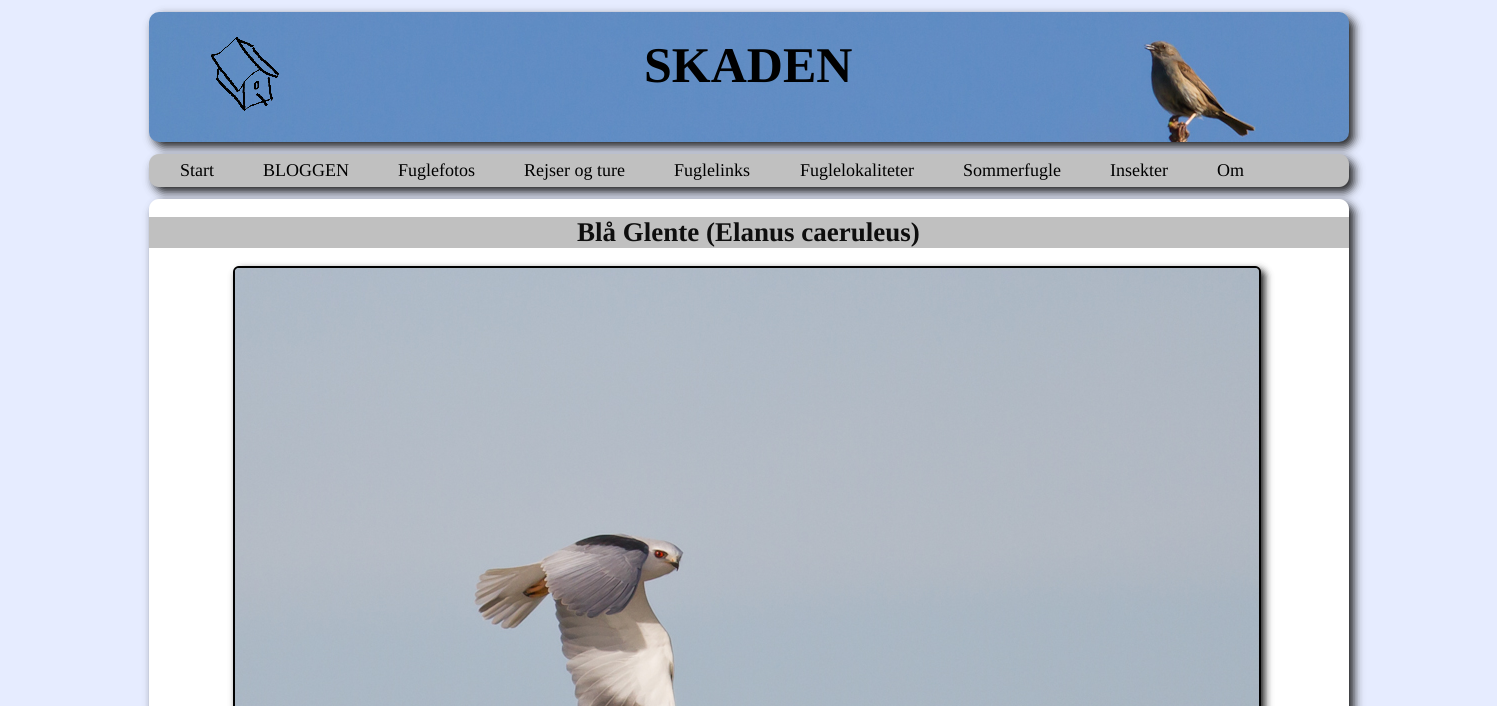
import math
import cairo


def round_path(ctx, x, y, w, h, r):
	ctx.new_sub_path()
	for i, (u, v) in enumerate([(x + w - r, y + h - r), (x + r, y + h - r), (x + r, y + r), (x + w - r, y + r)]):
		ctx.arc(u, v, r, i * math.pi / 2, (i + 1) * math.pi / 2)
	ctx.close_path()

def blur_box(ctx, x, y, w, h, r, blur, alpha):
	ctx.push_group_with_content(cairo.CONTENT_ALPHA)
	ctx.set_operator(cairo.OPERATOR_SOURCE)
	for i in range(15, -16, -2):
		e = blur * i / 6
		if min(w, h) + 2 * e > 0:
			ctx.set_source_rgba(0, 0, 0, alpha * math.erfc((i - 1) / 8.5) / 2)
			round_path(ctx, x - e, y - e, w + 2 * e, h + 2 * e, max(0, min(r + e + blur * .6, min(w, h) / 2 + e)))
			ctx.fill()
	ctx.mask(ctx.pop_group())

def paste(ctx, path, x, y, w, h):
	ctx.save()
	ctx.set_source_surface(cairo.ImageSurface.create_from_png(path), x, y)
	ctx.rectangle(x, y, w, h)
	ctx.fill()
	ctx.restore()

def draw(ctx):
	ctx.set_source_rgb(0.902, 0.925, 1)
	ctx.paint()
	ctx.set_source_rgb(0.125, 0.125, 0.125)
	blur_box(ctx, 154, 17, 1200, 130, 10, 5, 1)
	paste(ctx, 'media/1.png', 149, 12, 1200, 130)
	paste(ctx, 'media/2.png', 211, 37, 68, 74)
	ctx.select_font_face('Liberation Serif', cairo.FONT_SLANT_NORMAL, cairo.FONT_WEIGHT_BOLD)
	ctx.set_font_size(50)
	ctx.set_source_rgb(0, 0, 0)
	ctx.move_to(644, 82)
	ctx.show_text('SKADEN')
	ctx.set_source_rgb(0.125, 0.125, 0.125)
	blur_box(ctx, 154, 159, 1200, 33, 10, 5, 1)
	ctx.set_source_rgb(0.753, 0.753, 0.753)
	round_path(ctx, 149, 154, 1200, 33, 10)
	ctx.fill()
	ctx.select_font_face('Liberation Serif')
	ctx.set_font_size(18)
	ctx.set_source_rgb(0, 0, 0)
	for x, y, s in [
		(180, 176, 'Start'),
		(263, 176, 'BLOGGEN'),
		(398, 176, 'Fuglefotos'),
		(524, 176, 'Rejser og ture'),
		(674, 176, 'Fuglelinks'),
		(800, 176, 'Fuglelokaliteter'),
		(963, 176, 'Sommerfugle'),
		(1110, 176, 'Insekter'),
		(1217, 176, 'Om'),
	]:
		ctx.move_to(x, y)
		ctx.show_text(s)
	ctx.set_source_rgb(0.125, 0.125, 0.125)
	blur_box(ctx, 154, 204, 1200, 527, 10, 5, 1)
	ctx.set_source_rgb(1, 1, 1)
	round_path(ctx, 149, 199, 1200, 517, 10)
	ctx.fill()
	ctx.set_source_rgb(0.753, 0.753, 0.753)
	ctx.rectangle(149, 217, 1200, 31)
	ctx.fill()
	ctx.select_font_face('Liberation Serif', cairo.FONT_SLANT_NORMAL, cairo.FONT_WEIGHT_BOLD)
	ctx.set_font_size(27)
	ctx.set_source_rgb(0.055, 0.055, 0.055)
	ctx.move_to(577, 241)
	ctx.show_text('Blå Glente (Elanus caeruleus)')
	ctx.set_source_rgb(0.125, 0.125, 0.125)
	blur_box(ctx, 237, 270, 1028, 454, 6, 4, 1)
	round_path(ctx, 234, 267, 1026, 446, 5)
	ctx.set_source_rgb(0, 0, 0)
	ctx.stroke()
	paste(ctx, 'media/3.png', 235, 268, 1024, 438)


surface = cairo.ImageSurface(cairo.FORMAT_RGB24, 1497, 706)
ctx = cairo.Context(surface)
options = cairo.FontOptions()
options.set_hint_metrics(cairo.HINT_METRICS_OFF)
options.set_hint_style(cairo.HINT_STYLE_NONE)
ctx.set_font_options(options)
ctx.set_miter_limit(4)
draw(ctx)
surface.write_to_png('image.png')
